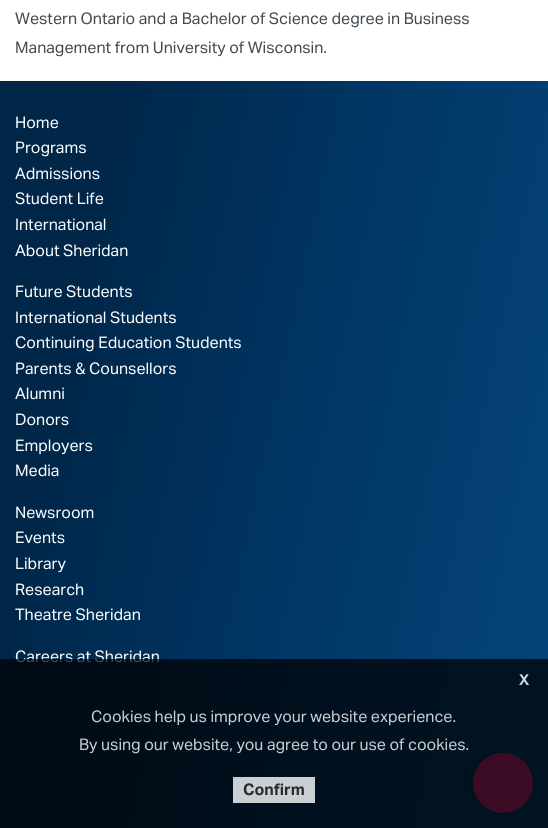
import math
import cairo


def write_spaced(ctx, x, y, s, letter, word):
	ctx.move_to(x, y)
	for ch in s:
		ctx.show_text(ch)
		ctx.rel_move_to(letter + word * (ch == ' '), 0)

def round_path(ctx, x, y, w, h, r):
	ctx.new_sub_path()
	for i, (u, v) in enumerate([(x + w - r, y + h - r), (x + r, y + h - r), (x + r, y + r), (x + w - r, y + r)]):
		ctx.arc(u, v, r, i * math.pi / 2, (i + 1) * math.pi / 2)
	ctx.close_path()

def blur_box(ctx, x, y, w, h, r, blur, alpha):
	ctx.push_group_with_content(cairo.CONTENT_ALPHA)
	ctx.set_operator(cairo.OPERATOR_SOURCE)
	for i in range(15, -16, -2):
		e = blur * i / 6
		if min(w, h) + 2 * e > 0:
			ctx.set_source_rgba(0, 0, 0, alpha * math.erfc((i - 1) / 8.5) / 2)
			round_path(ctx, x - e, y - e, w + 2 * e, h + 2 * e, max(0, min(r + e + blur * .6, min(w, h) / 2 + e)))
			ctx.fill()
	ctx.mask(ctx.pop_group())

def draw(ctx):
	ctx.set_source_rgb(1, 1, 1)
	ctx.paint()
	ctx.select_font_face('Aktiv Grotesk')
	ctx.set_font_size(16)
	ctx.set_source_rgb(0.255, 0.29, 0.318)
	ctx.move_to(15, 24)
	ctx.show_text('Western Ontario and a Bachelor of Science degree in Business')
	ctx.move_to(15, 53)
	ctx.show_text('Management from University of Wisconsin.')
	gradient = cairo.LinearGradient(-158, 822, 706, 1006)
	gradient.add_color_stop_rgba(0.12, 0, 0.149, 0.282, 1)
	gradient.add_color_stop_rgba(0.45, 0, 0.216, 0.404, 1)
	gradient.add_color_stop_rgba(0.78, 0.024, 0.275, 0.478, 1)
	ctx.set_source(gradient)
	ctx.rectangle(0, 81, 548, 747)
	ctx.fill()
	ctx.set_source_rgb(1, 1, 1)
	for x, y, s in [
		(15, 128, 'Home'),
		(15, 153, 'Programs'),
		(15, 179, 'Admissions'),
		(15, 204, 'Student Life'),
		(15, 230, 'International'),
		(15, 256, 'About Sheridan'),
		(15, 297, 'Future Students'),
		(15, 323, 'International Students'),
		(15, 348, 'Continuing Education Students'),
		(15, 374, 'Parents & Counsellors'),
		(15, 399, 'Alumni'),
		(15, 425, 'Donors'),
		(15, 451, 'Employers'),
		(15, 476, 'Media'),
		(15, 518, 'Newsroom'),
		(15, 543, 'Events'),
		(15, 569, 'Library'),
		(15, 595, 'Research'),
		(15, 620, 'Theatre Sheridan'),
		(15, 662, 'Careers at Sheridan'),
	]:
		ctx.move_to(x, y)
		ctx.show_text(s)
	ctx.set_source_rgb(0, 0, 0)
	blur_box(ctx, 473, 753, 60, 60, 30, 8.5, 0.1)
	ctx.set_source_rgb(0.851, 0.157, 0.502)
	ctx.arc(503, 783, 30, 0, 2 * math.pi)
	ctx.fill()
	ctx.set_source_rgba(0, 0, 0, 0.72)
	ctx.rectangle(0, 659, 548, 169)
	ctx.fill()
	ctx.select_font_face('Aktiv Grotesk', cairo.FONT_SLANT_NORMAL, cairo.FONT_WEIGHT_BOLD)
	ctx.set_font_size(15)
	ctx.set_source_rgb(0.804, 0.851, 0.894)
	write_spaced(ctx, 519, 685, 'X', 4, 0)
	ctx.select_font_face('Aktiv Grotesk')
	ctx.set_font_size(16)
	ctx.set_source_rgb(0.8, 0.812, 0.824)
	ctx.move_to(91, 722)
	ctx.show_text('Cookies help us improve your website experience.')
	ctx.move_to(79, 750)
	ctx.show_text('By using our website, you agree to our use of cookies.')
	ctx.rectangle(233, 777, 82, 26)
	ctx.fill()
	ctx.select_font_face('Aktiv Grotesk', cairo.FONT_SLANT_NORMAL, cairo.FONT_WEIGHT_BOLD)
	ctx.set_source_rgb(0.161, 0.161, 0.165)
	ctx.move_to(243, 795)
	ctx.show_text('Confirm')


surface = cairo.ImageSurface(cairo.FORMAT_RGB24, 548, 828)
ctx = cairo.Context(surface)
options = cairo.FontOptions()
options.set_hint_metrics(cairo.HINT_METRICS_OFF)
options.set_hint_style(cairo.HINT_STYLE_NONE)
ctx.set_font_options(options)
ctx.set_miter_limit(4)
draw(ctx)
surface.write_to_png('image.png')
